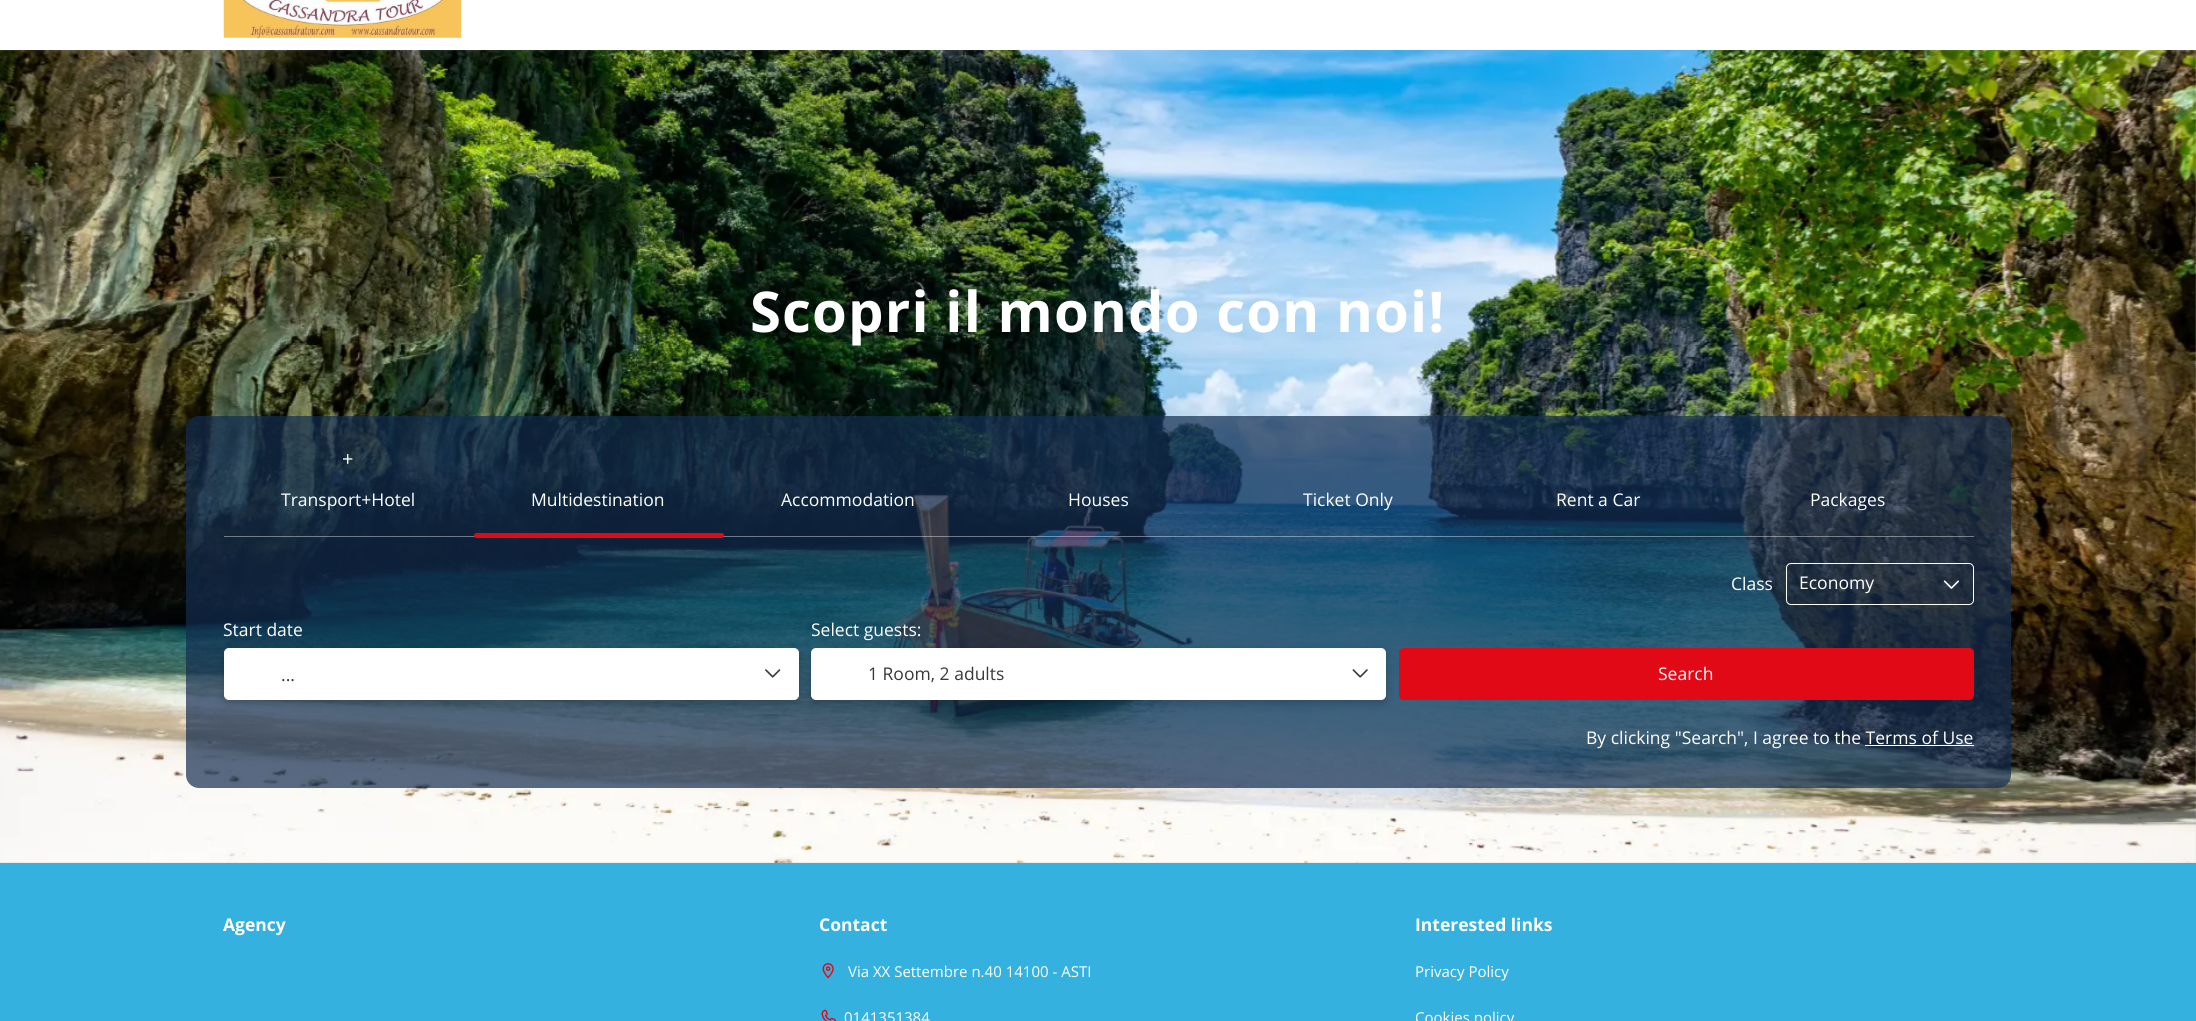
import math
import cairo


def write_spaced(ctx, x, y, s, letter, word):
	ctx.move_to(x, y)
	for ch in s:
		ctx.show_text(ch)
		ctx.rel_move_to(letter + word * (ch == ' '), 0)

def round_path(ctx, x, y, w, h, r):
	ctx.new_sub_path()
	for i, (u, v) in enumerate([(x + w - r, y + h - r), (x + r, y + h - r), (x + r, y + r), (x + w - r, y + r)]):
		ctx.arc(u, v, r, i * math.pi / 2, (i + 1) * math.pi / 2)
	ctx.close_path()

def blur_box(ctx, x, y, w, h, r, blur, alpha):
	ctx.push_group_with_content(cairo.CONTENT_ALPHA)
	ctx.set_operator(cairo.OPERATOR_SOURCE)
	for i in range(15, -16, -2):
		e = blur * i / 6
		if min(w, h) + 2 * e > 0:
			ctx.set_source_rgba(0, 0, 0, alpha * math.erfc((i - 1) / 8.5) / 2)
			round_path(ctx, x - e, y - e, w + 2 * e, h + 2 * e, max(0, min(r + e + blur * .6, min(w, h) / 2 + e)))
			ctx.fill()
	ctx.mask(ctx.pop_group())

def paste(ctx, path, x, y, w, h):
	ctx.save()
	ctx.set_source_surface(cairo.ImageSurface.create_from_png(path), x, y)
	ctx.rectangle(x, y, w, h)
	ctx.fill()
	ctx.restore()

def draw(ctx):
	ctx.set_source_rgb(1, 1, 1)
	ctx.paint()
	paste(ctx, 'media/1.png', 223, 0, 239, 38)
	ctx.set_source_rgb(0.824, 0.824, 0.824)
	ctx.rectangle(0, 50, 2196, 813)
	ctx.fill()
	paste(ctx, 'media/2.png', 0, 50, 2196, 813)
	ctx.select_font_face('Open Sans', cairo.FONT_SLANT_NORMAL, cairo.FONT_WEIGHT_BOLD)
	ctx.set_font_size(56.25)
	ctx.set_source_rgb(1, 1, 1)
	write_spaced(ctx, 750, 332, 'Scopri il mondo con noi!', 1.1, 0)
	ctx.set_source_rgba(0.075, 0.173, 0.318, 0.7)
	round_path(ctx, 186, 416, 1825, 372, 13)
	ctx.fill()
	ctx.set_source_rgba(1, 1, 1, 0.4)
	ctx.rectangle(224, 536, 1750, 1)
	ctx.fill()
	ctx.select_font_face('Open Sans')
	ctx.set_font_size(20)
	ctx.set_source_rgb(1, 1, 1)
	ctx.move_to(342, 466)
	ctx.show_text('+')
	ctx.set_font_size(17.5)
	ctx.move_to(281, 506)
	ctx.show_text('Transport+Hotel')
	ctx.move_to(531, 506)
	ctx.show_text('Multidestination')
	ctx.set_source_rgb(0.886, 0.039, 0.09)
	round_path(ctx, 474, 533, 250, 5, 2.5)
	ctx.fill()
	ctx.set_source_rgb(1, 1, 1)
	for x, y, s in [
		(781, 506, 'Accommodation'),
		(1068, 506, 'Houses'),
		(1303, 506, 'Ticket Only'),
		(1556, 506, 'Rent a Car'),
		(1810, 506, 'Packages'),
		(1731, 590, 'Class'),
	]:
		ctx.move_to(x, y)
		ctx.show_text(s)
	round_path(ctx, 1786.5, 563.5, 187, 41, 4.5)
	ctx.set_line_width(1)
	ctx.stroke()
	ctx.move_to(1799, 589)
	ctx.show_text('Economy')
	paste(ctx, 'media/3.png', 1943, 580, 16, 9)
	ctx.move_to(223, 636)
	ctx.show_text('Start date')
	ctx.set_source_rgb(0, 0, 0)
	blur_box(ctx, 224, 651, 575, 53, 5, 4.5, 0.2)
	ctx.set_source_rgb(1, 1, 1)
	round_path(ctx, 224.5, 648.5, 574, 51, 4.5)
	ctx.fill_preserve()
	ctx.stroke()
	paste(ctx, 'media/4.png', 765, 669, 16, 9)
	ctx.set_source_rgb(0.224, 0.224, 0.224)
	ctx.move_to(281, 681)
	ctx.show_text('...')
	ctx.set_source_rgb(1, 1, 1)
	ctx.move_to(811, 636)
	ctx.show_text('Select guests:')
	ctx.set_source_rgb(0.886, 0.039, 0.09)
	round_path(ctx, 1399, 648, 575, 52, 5)
	ctx.fill()
	ctx.set_source_rgb(0, 0, 0)
	blur_box(ctx, 811, 651, 575, 53, 5, 4.5, 0.2)
	ctx.set_source_rgb(1, 1, 1)
	round_path(ctx, 811.5, 648.5, 574, 51, 4.5)
	ctx.fill_preserve()
	ctx.stroke()
	ctx.set_source_rgb(0.224, 0.224, 0.224)
	ctx.move_to(868, 680)
	ctx.show_text('1 Room, 2 adults')
	paste(ctx, 'media/5.png', 1352, 669, 16, 9)
	ctx.set_source_rgb(1, 1, 1)
	ctx.move_to(1658, 680)
	ctx.show_text('Search')
	ctx.move_to(1586, 744)
	ctx.show_text('By clicking "Search", I agree to the Terms of Use')
	ctx.rectangle(1865, 745, 109, 1)
	ctx.fill()
	ctx.set_source_rgb(0.208, 0.694, 0.875)
	ctx.rectangle(0, 863, 2196, 158)
	ctx.fill()
	ctx.select_font_face('Open Sans', cairo.FONT_SLANT_NORMAL, cairo.FONT_WEIGHT_BOLD)
	ctx.set_source_rgb(1, 1, 1)
	ctx.move_to(223, 931)
	ctx.show_text('Agency')
	ctx.move_to(819, 931)
	ctx.show_text('Contact')
	paste(ctx, 'media/6.png', 822, 963, 12, 16)
	ctx.select_font_face('Open Sans')
	ctx.set_font_size(15)
	ctx.move_to(848, 977)
	ctx.show_text('Via XX Settembre n.40 14100 - ASTI')
	paste(ctx, 'media/7.png', 821, 1009, 15, 12)
	ctx.move_to(844, 1023)
	ctx.show_text('0141351384')
	ctx.select_font_face('Open Sans', cairo.FONT_SLANT_NORMAL, cairo.FONT_WEIGHT_BOLD)
	ctx.set_font_size(17.5)
	ctx.move_to(1415, 931)
	ctx.show_text('Interested links')
	ctx.select_font_face('Open Sans')
	ctx.set_font_size(15)
	ctx.move_to(1415, 977)
	ctx.show_text('Privacy Policy')
	ctx.move_to(1415, 1023)
	ctx.show_text('Cookies policy')


surface = cairo.ImageSurface(cairo.FORMAT_RGB24, 2196, 1021)
ctx = cairo.Context(surface)
options = cairo.FontOptions()
options.set_hint_metrics(cairo.HINT_METRICS_OFF)
options.set_hint_style(cairo.HINT_STYLE_NONE)
ctx.set_font_options(options)
ctx.set_miter_limit(4)
draw(ctx)
surface.write_to_png('image.png')
